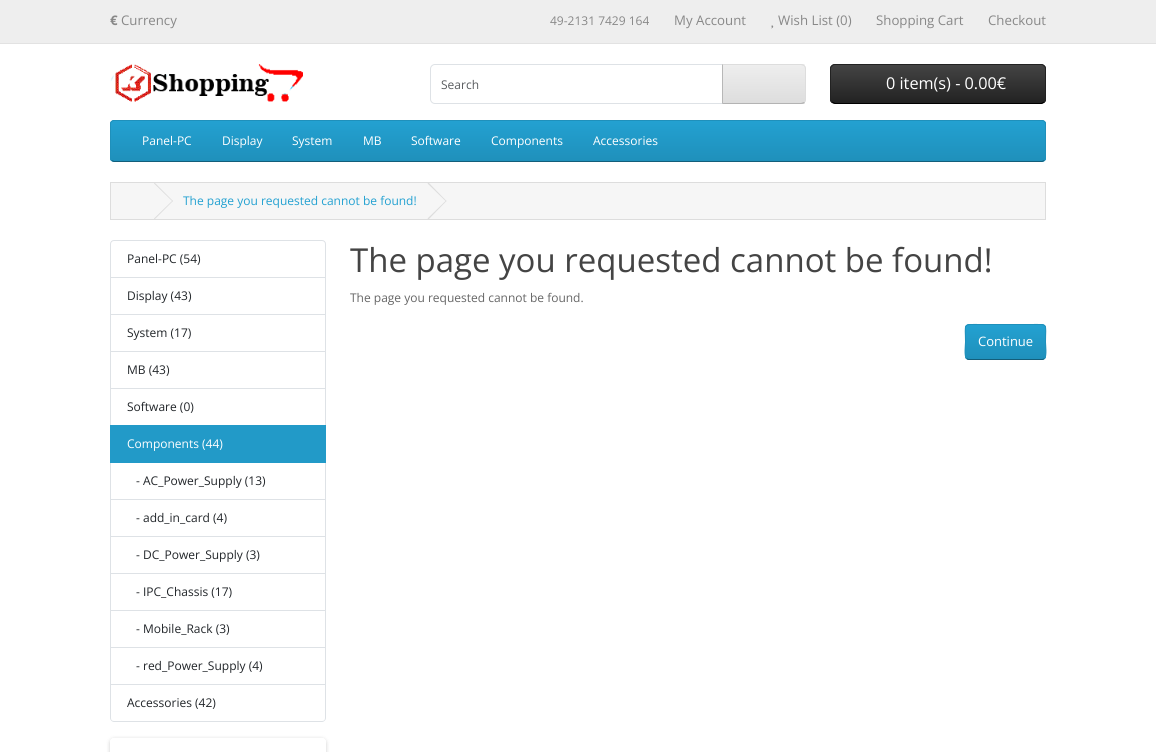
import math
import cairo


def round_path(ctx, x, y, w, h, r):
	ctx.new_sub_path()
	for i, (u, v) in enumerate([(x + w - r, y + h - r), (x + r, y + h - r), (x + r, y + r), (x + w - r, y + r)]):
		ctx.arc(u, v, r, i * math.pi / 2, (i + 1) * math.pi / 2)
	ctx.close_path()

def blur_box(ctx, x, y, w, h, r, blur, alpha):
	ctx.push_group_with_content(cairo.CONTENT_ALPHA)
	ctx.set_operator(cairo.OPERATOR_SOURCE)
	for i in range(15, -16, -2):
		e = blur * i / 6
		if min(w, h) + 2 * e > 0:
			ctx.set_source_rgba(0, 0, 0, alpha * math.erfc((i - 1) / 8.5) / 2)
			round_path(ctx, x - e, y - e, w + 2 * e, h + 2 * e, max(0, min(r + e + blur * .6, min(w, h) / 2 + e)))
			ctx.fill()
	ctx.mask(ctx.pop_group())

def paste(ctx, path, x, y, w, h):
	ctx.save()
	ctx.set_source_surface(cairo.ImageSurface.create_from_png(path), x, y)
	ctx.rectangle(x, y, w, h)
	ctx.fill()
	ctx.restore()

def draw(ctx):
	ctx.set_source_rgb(1, 1, 1)
	ctx.paint()
	ctx.set_source_rgb(0.933, 0.933, 0.933)
	ctx.rectangle(0, 0, 1156, 43)
	ctx.fill()
	ctx.set_source_rgb(0.886, 0.886, 0.886)
	ctx.rectangle(0, 43, 1156, 1)
	ctx.fill()
	ctx.select_font_face('Open Sans', cairo.FONT_SLANT_NORMAL, cairo.FONT_WEIGHT_BOLD)
	ctx.set_font_size(13.25)
	ctx.set_source_rgb(0.533, 0.533, 0.533)
	ctx.move_to(110, 25)
	ctx.show_text('€')
	ctx.select_font_face('Open Sans')
	ctx.move_to(121, 25)
	ctx.show_text('Currency')
	ctx.set_font_size(12)
	ctx.move_to(550, 25)
	ctx.show_text('49-2131 7429 164')
	ctx.set_font_size(13.25)
	ctx.move_to(674, 25)
	ctx.show_text('My Account')
	paste(ctx, 'media/1.png', 771, 25, 3, 4)
	for x, y, s in [
		(778, 25, 'Wish List (0)'),
		(876, 25, 'Shopping Cart'),
		(988, 25, 'Checkout'),
	]:
		ctx.move_to(x, y)
		ctx.show_text(s)
	paste(ctx, 'media/2.png', 110, 64, 193, 38)
	ctx.new_path()
	ctx.move_to(435, 64.5)
	ctx.line_to(722.5, 64.5)
	ctx.line_to(722.5, 103.5)
	ctx.line_to(435, 103.5)
	ctx.curve_to(432.5, 103.5, 430.5, 101.5, 430.5, 99)
	ctx.line_to(430.5, 69)
	ctx.curve_to(430.5, 66.5, 432.5, 64.5, 435, 64.5)
	ctx.close_path()
	ctx.set_source_rgb(0.871, 0.886, 0.902)
	ctx.set_line_width(1)
	ctx.stroke()
	ctx.set_font_size(12)
	ctx.set_source_rgb(0.349, 0.361, 0.373)
	ctx.move_to(441, 89)
	ctx.show_text('Search')
	ctx.save()
	ctx.new_path()
	ctx.move_to(722, 64)
	ctx.line_to(801, 64)
	ctx.curve_to(804, 64, 806, 66, 806, 69)
	ctx.line_to(806, 99)
	ctx.curve_to(806, 102, 804, 104, 801, 104)
	ctx.line_to(722, 104)
	ctx.close_path()
	ctx.clip()
	gradient = cairo.LinearGradient(764, 65, 764, 103)
	gradient.add_color_stop_rgba(0, 0.933, 0.933, 0.933, 1)
	gradient.add_color_stop_rgba(1, 0.867, 0.867, 0.867, 1)
	ctx.set_source(gradient)
	ctx.rectangle(723, 65, 83, 38)
	ctx.fill()
	ctx.restore()
	ctx.set_source_rgb(0.867, 0.867, 0.867)
	ctx.new_path()
	ctx.move_to(722, 64)
	ctx.line_to(723, 65)
	ctx.line_to(801, 65)
	ctx.line_to(804, 66)
	ctx.line_to(805, 65)
	ctx.curve_to(804, 64, 802, 64, 801, 64)
	ctx.close_path()
	ctx.fill()
	ctx.new_path()
	ctx.move_to(806, 99)
	ctx.line_to(806, 69)
	ctx.curve_to(806, 67.5, 805.5, 66, 804.5, 65.5)
	ctx.line_to(804, 66)
	ctx.curve_to(804.5, 67, 805, 68, 805, 69)
	ctx.line_to(805, 99)
	ctx.curve_to(805, 100, 804.5, 101, 804, 102)
	ctx.line_to(804.5, 102.5)
	ctx.curve_to(805.5, 102, 806, 100.5, 806, 99)
	ctx.close_path()
	ctx.fill()
	ctx.set_source_rgb(0.702, 0.702, 0.702)
	ctx.new_path()
	ctx.move_to(801, 104)
	ctx.curve_to(802, 104, 804, 104, 805, 103)
	ctx.line_to(804, 102)
	ctx.line_to(801, 103)
	ctx.line_to(723, 103)
	ctx.line_to(722, 104)
	ctx.close_path()
	ctx.fill()
	ctx.set_source_rgb(0.718, 0.718, 0.718)
	ctx.new_path()
	ctx.move_to(722, 64)
	ctx.line_to(722, 104)
	ctx.line_to(723, 103)
	ctx.line_to(723, 65)
	ctx.close_path()
	ctx.fill()
	ctx.set_source_rgb(0.212, 0.212, 0.212)
	round_path(ctx, 830, 64, 216, 40, 5)
	ctx.fill()
	ctx.save()
	round_path(ctx, 830, 64, 216, 40, 5)
	ctx.clip()
	gradient = cairo.LinearGradient(938, 65, 938, 103)
	gradient.add_color_stop_rgba(0, 0.267, 0.267, 0.267, 1)
	gradient.add_color_stop_rgba(1, 0.133, 0.133, 0.133, 1)
	ctx.set_source(gradient)
	ctx.rectangle(830, 65, 216, 38)
	ctx.fill()
	ctx.restore()
	ctx.new_path()
	ctx.move_to(1044, 102)
	ctx.line_to(1041.5, 103.5)
	ctx.line_to(869, 103.5)
	ctx.line_to(835, 103.5)
	ctx.line_to(832, 102)
	ctx.set_source_rgb(0, 0, 0)
	ctx.stroke()
	ctx.new_path()
	ctx.move_to(832, 102)
	ctx.curve_to(831, 101.5, 830.5, 100.5, 830.5, 99)
	ctx.line_to(830.5, 69)
	ctx.curve_to(830.5, 67.5, 831, 66.5, 832, 66)
	ctx.curve_to(832.5, 65, 833.5, 64.5, 835, 64.5)
	ctx.line_to(1041, 64.5)
	ctx.curve_to(1042.5, 64.5, 1043.5, 65, 1044, 66)
	ctx.curve_to(1045, 66.5, 1045.5, 67.5, 1045.5, 69)
	ctx.line_to(1045.5, 99)
	ctx.curve_to(1045.5, 100.5, 1045, 101.5, 1044, 102)
	ctx.set_source_rgb(0.133, 0.133, 0.133)
	ctx.stroke()
	ctx.set_font_size(16.25)
	ctx.set_source_rgb(1, 1, 1)
	ctx.move_to(886, 89)
	ctx.show_text('0 item(s) - 0.00€')
	ctx.set_source_rgb(0.133, 0.604, 0.784)
	round_path(ctx, 110, 120, 936, 42, 4)
	ctx.fill()
	ctx.save()
	round_path(ctx, 110, 120, 936, 42, 4)
	ctx.clip()
	gradient = cairo.LinearGradient(578, 121, 578, 161)
	gradient.add_color_stop_rgba(0, 0.137, 0.631, 0.82, 1)
	gradient.add_color_stop_rgba(1, 0.122, 0.565, 0.733, 1)
	ctx.set_source(gradient)
	ctx.rectangle(110, 121, 936, 40)
	ctx.fill()
	ctx.restore()
	ctx.new_path()
	ctx.move_to(1044.5, 160.5)
	ctx.line_to(1042, 161.5)
	ctx.line_to(114, 161.5)
	ctx.line_to(111.5, 160.5)
	ctx.set_source_rgb(0.078, 0.369, 0.478)
	ctx.stroke()
	ctx.new_path()
	ctx.move_to(111.5, 160.5)
	ctx.curve_to(111, 160, 110.5, 159, 110.5, 158)
	ctx.line_to(110.5, 124)
	ctx.curve_to(110.5, 123, 111, 122, 111.5, 121.5)
	ctx.curve_to(112, 121, 113, 120.5, 114, 120.5)
	ctx.line_to(1042, 120.5)
	ctx.curve_to(1043, 120.5, 1044, 121, 1044.5, 121.5)
	ctx.curve_to(1045, 122, 1045.5, 123, 1045.5, 124)
	ctx.line_to(1045.5, 158)
	ctx.curve_to(1045.5, 159, 1045, 160, 1044.5, 160.5)
	ctx.set_source_rgb(0.122, 0.565, 0.733)
	ctx.stroke()
	ctx.set_font_size(12)
	ctx.set_source_rgb(1, 1, 1)
	for x, y, s in [
		(142, 145, 'Panel-PC'),
		(222, 145, 'Display'),
		(292, 145, 'System'),
		(363, 145, 'MB'),
		(411, 145, 'Software'),
		(491, 145, 'Components'),
		(593, 145, 'Accessories'),
	]:
		ctx.move_to(x, y)
		ctx.show_text(s)
	ctx.set_source_rgb(0.961, 0.961, 0.961)
	ctx.rectangle(110.5, 182.5, 935, 37)
	ctx.fill_preserve()
	ctx.set_source_rgb(0.867, 0.867, 0.867)
	ctx.stroke()
	ctx.new_path()
	ctx.move_to(154, 183.5)
	ctx.line_to(154.5, 182.5)
	ctx.line_to(173, 201)
	ctx.line_to(172.5, 201.5)
	ctx.close_path()
	ctx.fill()
	ctx.new_path()
	ctx.move_to(154, 218.5)
	ctx.line_to(172.5, 200.5)
	ctx.line_to(173, 201)
	ctx.line_to(154.5, 219.5)
	ctx.close_path()
	ctx.fill()
	ctx.set_source_rgb(0.137, 0.631, 0.82)
	ctx.move_to(183, 205)
	ctx.show_text('The page you requested cannot be found!')
	ctx.set_source_rgb(0.867, 0.867, 0.867)
	ctx.new_path()
	ctx.move_to(427.5, 183.5)
	ctx.line_to(428.5, 182.5)
	ctx.line_to(446.5, 201)
	ctx.line_to(446, 201.5)
	ctx.close_path()
	ctx.fill()
	ctx.new_path()
	ctx.move_to(427.5, 218.5)
	ctx.line_to(446, 200.5)
	ctx.line_to(446.5, 201)
	ctx.line_to(428.5, 219.5)
	ctx.close_path()
	ctx.fill()
	ctx.new_path()
	ctx.move_to(114, 240.5)
	ctx.line_to(322, 240.5)
	ctx.curve_to(324, 240.5, 325.5, 242, 325.5, 244)
	ctx.line_to(325.5, 277.5)
	ctx.line_to(110.5, 277.5)
	ctx.line_to(110.5, 244)
	ctx.curve_to(110.5, 242, 112, 240.5, 114, 240.5)
	ctx.close_path()
	ctx.set_source_rgb(0.871, 0.886, 0.902)
	ctx.stroke()
	ctx.set_source_rgb(0.129, 0.145, 0.161)
	ctx.move_to(127, 263)
	ctx.show_text('Panel-PC (54)')
	ctx.set_source_rgb(0.871, 0.886, 0.902)
	ctx.rectangle(325, 278, 1, 148)
	ctx.rectangle(110, 314, 216, 1)
	ctx.rectangle(110, 278, 1, 37)
	ctx.fill()
	ctx.set_source_rgb(0.129, 0.145, 0.161)
	ctx.move_to(127, 300)
	ctx.show_text('Display (43)')
	ctx.set_source_rgb(0.871, 0.886, 0.902)
	ctx.rectangle(110, 351, 216, 1)
	ctx.fill()
	ctx.rectangle(110, 315, 1, 37)
	ctx.fill()
	ctx.set_source_rgb(0.129, 0.145, 0.161)
	ctx.move_to(127, 337)
	ctx.show_text('System (17)')
	ctx.set_source_rgb(0.871, 0.886, 0.902)
	ctx.rectangle(110, 388, 216, 1)
	ctx.fill()
	ctx.rectangle(110, 352, 1, 74)
	ctx.fill()
	ctx.set_source_rgb(0.129, 0.145, 0.161)
	ctx.move_to(127, 374)
	ctx.show_text('MB (43)')
	ctx.move_to(127, 411)
	ctx.show_text('Software (0)')
	ctx.set_source_rgb(0.133, 0.604, 0.784)
	ctx.rectangle(110, 425, 216, 38)
	ctx.fill()
	ctx.set_source_rgb(1, 1, 1)
	ctx.move_to(127, 448)
	ctx.show_text('Components (44)')
	ctx.set_source_rgb(0.871, 0.886, 0.902)
	ctx.rectangle(325, 463, 1, 222)
	ctx.rectangle(110, 499, 216, 1)
	ctx.rectangle(110, 463, 1, 37)
	ctx.fill()
	ctx.set_source_rgb(0.129, 0.145, 0.161)
	ctx.move_to(136, 485)
	ctx.show_text('- AC_Power_Supply (13)')
	ctx.set_source_rgb(0.871, 0.886, 0.902)
	ctx.rectangle(110, 536, 216, 1)
	ctx.fill()
	ctx.rectangle(110, 500, 1, 37)
	ctx.fill()
	ctx.set_source_rgb(0.129, 0.145, 0.161)
	ctx.move_to(136, 522)
	ctx.show_text('- add_in_card (4)')
	ctx.set_source_rgb(0.871, 0.886, 0.902)
	ctx.rectangle(110, 573, 216, 1)
	ctx.fill()
	ctx.rectangle(110, 537, 1, 37)
	ctx.fill()
	ctx.set_source_rgb(0.129, 0.145, 0.161)
	ctx.move_to(136, 559)
	ctx.show_text('- DC_Power_Supply (3)')
	ctx.set_source_rgb(0.871, 0.886, 0.902)
	ctx.rectangle(110, 610, 216, 1)
	ctx.fill()
	ctx.rectangle(110, 574, 1, 37)
	ctx.fill()
	ctx.set_source_rgb(0.129, 0.145, 0.161)
	ctx.move_to(136, 596)
	ctx.show_text('- IPC_Chassis (17)')
	ctx.set_source_rgb(0.871, 0.886, 0.902)
	ctx.rectangle(110, 647, 216, 1)
	ctx.fill()
	ctx.rectangle(110, 611, 1, 37)
	ctx.fill()
	ctx.set_source_rgb(0.129, 0.145, 0.161)
	ctx.move_to(136, 633)
	ctx.show_text('- Mobile_Rack (3)')
	ctx.set_source_rgb(0.871, 0.886, 0.902)
	ctx.rectangle(110, 684, 216, 1)
	ctx.fill()
	ctx.rectangle(110, 648, 1, 37)
	ctx.fill()
	ctx.set_source_rgb(0.129, 0.145, 0.161)
	ctx.move_to(136, 670)
	ctx.show_text('- red_Power_Supply (4)')
	ctx.set_source_rgb(0.871, 0.886, 0.902)
	ctx.set_fill_rule(cairo.FILL_RULE_EVEN_ODD)
	ctx.new_path()
	ctx.move_to(110, 685)
	ctx.line_to(326, 685)
	ctx.line_to(326, 718)
	ctx.curve_to(326, 720, 324, 722, 322, 722)
	ctx.line_to(114, 722)
	ctx.curve_to(112, 722, 110, 720, 110, 718)
	ctx.close_path()
	ctx.move_to(111, 685)
	ctx.line_to(325, 685)
	ctx.line_to(325, 718)
	ctx.curve_to(325, 720, 324, 721, 322, 721)
	ctx.line_to(114, 721)
	ctx.curve_to(112, 721, 111, 720, 111, 718)
	ctx.close_path()
	ctx.fill()
	ctx.set_source_rgb(0.129, 0.145, 0.161)
	ctx.move_to(127, 707)
	ctx.show_text('Accessories (42)')
	ctx.save()
	ctx.new_path()
	ctx.move_to(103, 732)
	ctx.line_to(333, 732)
	ctx.line_to(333, 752)
	ctx.line_to(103, 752)
	ctx.close_path()
	ctx.move_to(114, 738)
	ctx.line_to(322, 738)
	ctx.curve_to(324, 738, 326, 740, 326, 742)
	ctx.line_to(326, 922)
	ctx.curve_to(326, 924, 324, 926, 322, 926)
	ctx.line_to(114, 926)
	ctx.curve_to(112, 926, 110, 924, 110, 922)
	ctx.line_to(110, 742)
	ctx.curve_to(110, 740, 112, 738, 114, 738)
	ctx.close_path()
	ctx.clip()
	ctx.set_source_rgb(0, 0, 0)
	blur_box(ctx, 110, 739, 216, 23, 4, 2, 0.2)
	ctx.restore()
	round_path(ctx, 112, 740, 212, 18, 2)
	ctx.set_source_rgb(1, 1, 1)
	ctx.set_line_width(4)
	ctx.stroke()
	ctx.set_font_size(33)
	ctx.set_source_rgb(0.267, 0.267, 0.267)
	ctx.move_to(350, 272)
	ctx.show_text('The page you requested cannot be found!')
	ctx.set_font_size(12)
	ctx.set_source_rgb(0.4, 0.4, 0.4)
	ctx.move_to(350, 302)
	ctx.show_text('The page you requested cannot be found.')
	ctx.set_source_rgb(0.133, 0.604, 0.784)
	round_path(ctx, 965, 324, 81, 36, 4)
	ctx.fill()
	ctx.save()
	ctx.set_fill_rule(cairo.FILL_RULE_WINDING)
	round_path(ctx, 965, 324, 81, 36, 4)
	ctx.clip()
	gradient = cairo.LinearGradient(1006, 325, 1006, 359)
	gradient.add_color_stop_rgba(0, 0.137, 0.631, 0.82, 1)
	gradient.add_color_stop_rgba(1, 0.122, 0.565, 0.733, 1)
	ctx.set_source(gradient)
	ctx.rectangle(965, 325, 81, 34)
	ctx.fill()
	ctx.restore()
	ctx.new_path()
	ctx.move_to(1044.5, 358.5)
	ctx.curve_to(1044, 359, 1043, 359.5, 1042, 359.5)
	ctx.line_to(969, 359.5)
	ctx.curve_to(968, 359.5, 967, 359, 966.5, 358.5)
	ctx.set_source_rgb(0.078, 0.369, 0.478)
	ctx.set_line_width(1)
	ctx.stroke()
	ctx.new_path()
	ctx.move_to(966.5, 358.5)
	ctx.curve_to(964, 356, 965.5, 345, 965.5, 342)
	ctx.curve_to(965.5, 322.5, 962, 324.5, 981, 324.5)
	ctx.line_to(1030, 324.5)
	ctx.curve_to(1049, 324.5, 1045.5, 322.5, 1045.5, 342)
	ctx.curve_to(1045.5, 345, 1047, 356, 1044.5, 358.5)
	ctx.set_source_rgb(0.122, 0.565, 0.733)
	ctx.stroke()
	ctx.set_font_size(13)
	ctx.set_source_rgb(1, 1, 1)
	ctx.move_to(978, 346)
	ctx.show_text('Continue')


surface = cairo.ImageSurface(cairo.FORMAT_RGB24, 1156, 752)
ctx = cairo.Context(surface)
options = cairo.FontOptions()
options.set_hint_metrics(cairo.HINT_METRICS_OFF)
options.set_hint_style(cairo.HINT_STYLE_NONE)
ctx.set_font_options(options)
ctx.set_miter_limit(4)
draw(ctx)
surface.write_to_png('image.png')
